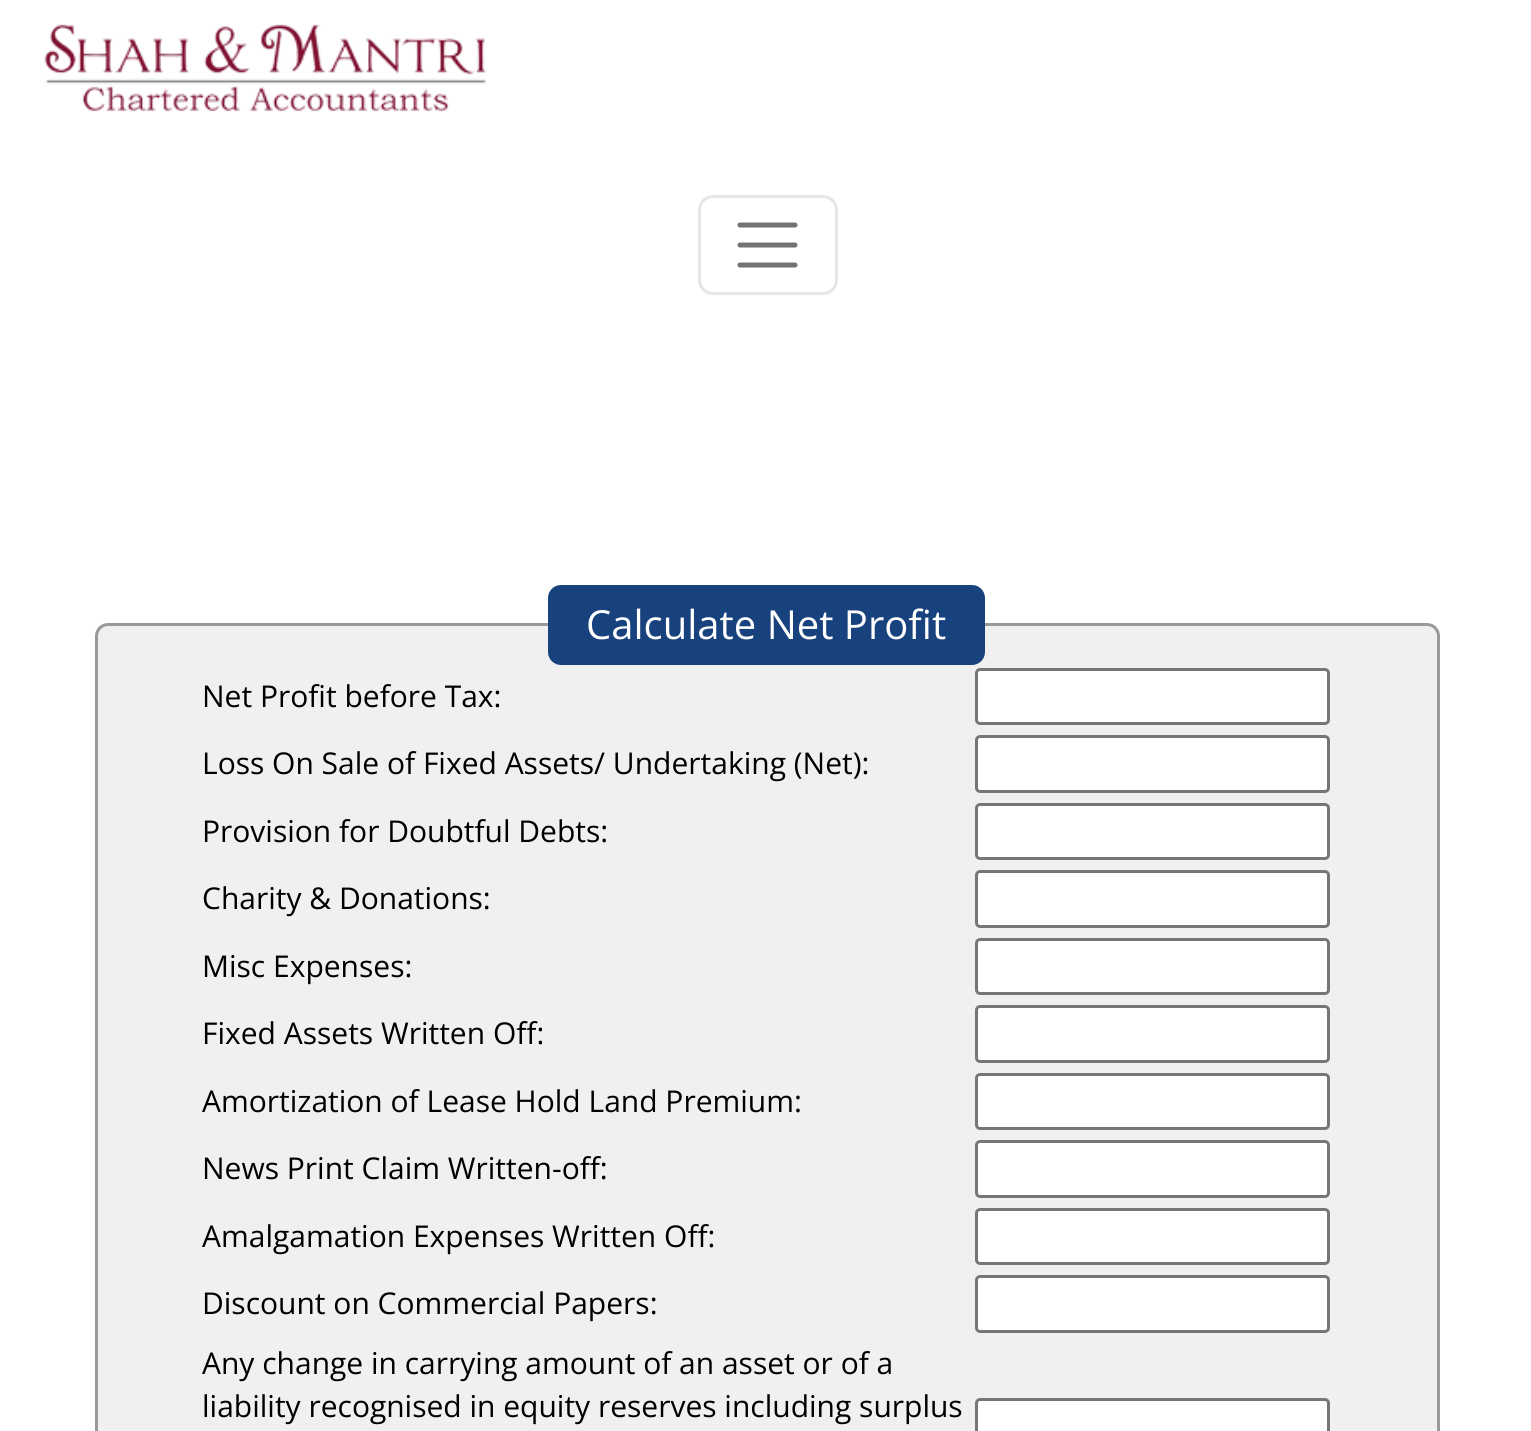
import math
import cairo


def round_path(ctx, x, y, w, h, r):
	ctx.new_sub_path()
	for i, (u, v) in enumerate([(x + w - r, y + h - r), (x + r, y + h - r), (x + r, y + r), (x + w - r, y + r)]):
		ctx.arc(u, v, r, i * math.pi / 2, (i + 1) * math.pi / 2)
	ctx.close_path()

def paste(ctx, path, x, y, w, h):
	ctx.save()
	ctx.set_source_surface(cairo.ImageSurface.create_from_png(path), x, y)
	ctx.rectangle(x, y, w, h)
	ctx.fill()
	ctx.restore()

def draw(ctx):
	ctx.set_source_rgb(1, 1, 1)
	ctx.paint()
	paste(ctx, 'media/1.png', 44, 24, 442, 88)
	round_path(ctx, 699.5, 196.5, 137, 97, 13.5)
	ctx.set_source_rgb(0.902, 0.902, 0.902)
	ctx.set_line_width(3)
	ctx.stroke()
	ctx.new_path()
	ctx.move_to(740, 225)
	ctx.line_to(795, 225)
	ctx.move_to(740, 245)
	ctx.line_to(795, 245)
	ctx.move_to(740, 265)
	ctx.line_to(795, 265)
	ctx.set_source_rgb(0.451, 0.451, 0.451)
	ctx.set_line_width(5)
	ctx.set_line_cap(cairo.LINE_CAP_ROUND)
	ctx.stroke()
	ctx.set_source_rgb(0.941, 0.941, 0.941)
	round_path(ctx, 96.5, 624.5, 1342, 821, 11.5)
	ctx.fill_preserve()
	ctx.set_source_rgb(0.6, 0.6, 0.6)
	ctx.set_line_width(3)
	ctx.set_line_cap(cairo.LINE_CAP_BUTT)
	ctx.stroke()
	ctx.set_source_rgb(0.094, 0.259, 0.49)
	round_path(ctx, 548, 585, 437, 80, 13)
	ctx.fill()
	ctx.select_font_face('Open Sans')
	ctx.set_font_size(40)
	ctx.set_source_rgb(1, 1, 1)
	ctx.move_to(586, 639)
	ctx.show_text('Calculate Net Profit')
	ctx.set_font_size(30)
	ctx.set_source_rgb(0, 0, 0)
	ctx.move_to(202, 707)
	ctx.show_text('Net Profit before Tax:')
	ctx.set_source_rgb(1, 1, 1)
	round_path(ctx, 976.5, 669.5, 352, 54, 3.5)
	ctx.fill_preserve()
	ctx.set_source_rgb(0.463, 0.463, 0.463)
	ctx.stroke()
	ctx.set_source_rgb(0, 0, 0)
	ctx.move_to(202, 774)
	ctx.show_text('Loss On Sale of Fixed Assets/ Undertaking (Net):')
	ctx.set_source_rgb(1, 1, 1)
	round_path(ctx, 976.5, 736.5, 352, 55, 3.5)
	ctx.fill_preserve()
	ctx.set_source_rgb(0.463, 0.463, 0.463)
	ctx.stroke()
	ctx.set_source_rgb(0, 0, 0)
	ctx.move_to(202, 842)
	ctx.show_text('Provision for Doubtful Debts:')
	ctx.set_source_rgb(1, 1, 1)
	round_path(ctx, 976.5, 804.5, 352, 54, 3.5)
	ctx.fill_preserve()
	ctx.set_source_rgb(0.463, 0.463, 0.463)
	ctx.stroke()
	ctx.set_source_rgb(0, 0, 0)
	ctx.move_to(202, 909)
	ctx.show_text('Charity & Donations:')
	ctx.set_source_rgb(1, 1, 1)
	round_path(ctx, 976.5, 871.5, 352, 55, 3.5)
	ctx.fill_preserve()
	ctx.set_source_rgb(0.463, 0.463, 0.463)
	ctx.stroke()
	ctx.set_source_rgb(0, 0, 0)
	ctx.move_to(202, 977)
	ctx.show_text('Misc Expenses:')
	ctx.set_source_rgb(1, 1, 1)
	round_path(ctx, 976.5, 939.5, 352, 54, 3.5)
	ctx.fill_preserve()
	ctx.set_source_rgb(0.463, 0.463, 0.463)
	ctx.stroke()
	ctx.set_source_rgb(0, 0, 0)
	ctx.move_to(202, 1044)
	ctx.show_text('Fixed Assets Written Off:')
	ctx.set_source_rgb(1, 1, 1)
	round_path(ctx, 976.5, 1006.5, 352, 55, 3.5)
	ctx.fill_preserve()
	ctx.set_source_rgb(0.463, 0.463, 0.463)
	ctx.stroke()
	ctx.set_source_rgb(0, 0, 0)
	ctx.move_to(202, 1112)
	ctx.show_text('Amortization of Lease Hold Land Premium:')
	ctx.set_source_rgb(1, 1, 1)
	round_path(ctx, 976.5, 1074.5, 352, 54, 3.5)
	ctx.fill_preserve()
	ctx.set_source_rgb(0.463, 0.463, 0.463)
	ctx.stroke()
	ctx.set_source_rgb(0, 0, 0)
	ctx.move_to(202, 1179)
	ctx.show_text('News Print Claim Written-off:')
	ctx.set_source_rgb(1, 1, 1)
	round_path(ctx, 976.5, 1141.5, 352, 55, 3.5)
	ctx.fill_preserve()
	ctx.set_source_rgb(0.463, 0.463, 0.463)
	ctx.stroke()
	ctx.set_source_rgb(0, 0, 0)
	ctx.move_to(202, 1247)
	ctx.show_text('Amalgamation Expenses Written Off:')
	ctx.set_source_rgb(1, 1, 1)
	round_path(ctx, 976.5, 1209.5, 352, 54, 3.5)
	ctx.fill_preserve()
	ctx.set_source_rgb(0.463, 0.463, 0.463)
	ctx.stroke()
	ctx.set_source_rgb(0, 0, 0)
	ctx.move_to(202, 1314)
	ctx.show_text('Discount on Commercial Papers:')
	ctx.set_source_rgb(1, 1, 1)
	round_path(ctx, 976.5, 1276.5, 352, 55, 3.5)
	ctx.fill_preserve()
	ctx.set_source_rgb(0.463, 0.463, 0.463)
	ctx.stroke()
	ctx.set_source_rgb(0, 0, 0)
	ctx.move_to(202, 1374)
	ctx.show_text('Any change in carrying amount of an asset or of a')
	ctx.move_to(202, 1417)
	ctx.show_text('liability recognised in equity reserves including surplus')
	ctx.set_source_rgb(1, 1, 1)
	round_path(ctx, 976.5, 1399.5, 352, 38, 3.5)
	ctx.fill_preserve()
	ctx.set_source_rgb(0.463, 0.463, 0.463)
	ctx.stroke()


surface = cairo.ImageSurface(cairo.FORMAT_RGB24, 1531, 1431)
ctx = cairo.Context(surface)
options = cairo.FontOptions()
options.set_hint_metrics(cairo.HINT_METRICS_OFF)
options.set_hint_style(cairo.HINT_STYLE_NONE)
ctx.set_font_options(options)
ctx.set_miter_limit(4)
draw(ctx)
surface.write_to_png('image.png')
